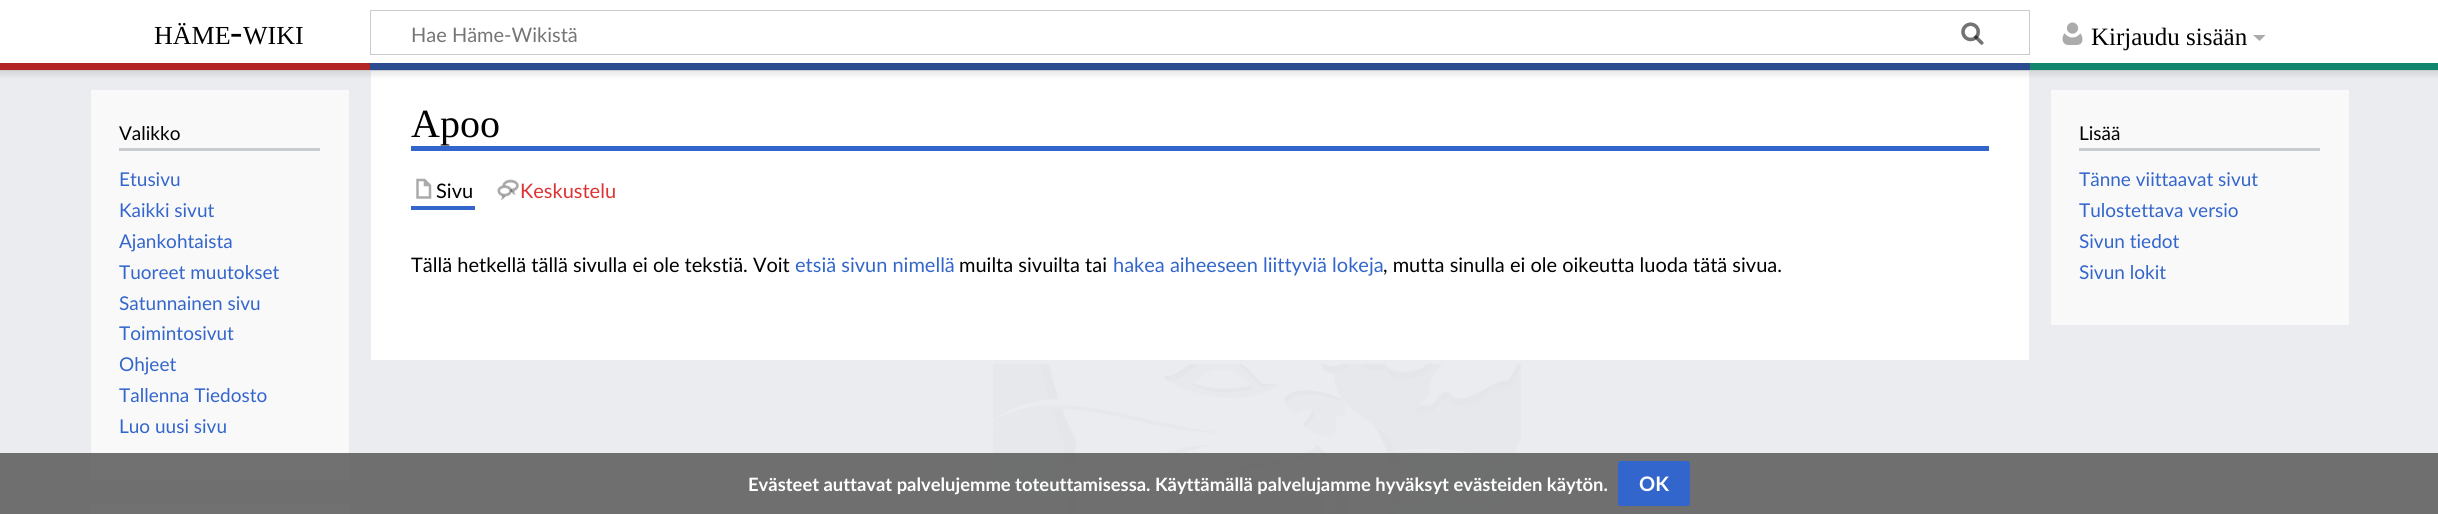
import math
import cairo


def round_path(ctx, x, y, w, h, r):
	ctx.new_sub_path()
	for i, (u, v) in enumerate([(x + w - r, y + h - r), (x + r, y + h - r), (x + r, y + r), (x + w - r, y + r)]):
		ctx.arc(u, v, r, i * math.pi / 2, (i + 1) * math.pi / 2)
	ctx.close_path()

def blur_box(ctx, x, y, w, h, r, blur, alpha):
	ctx.push_group_with_content(cairo.CONTENT_ALPHA)
	ctx.set_operator(cairo.OPERATOR_SOURCE)
	for i in range(15, -16, -2):
		e = blur * i / 6
		if min(w, h) + 2 * e > 0:
			ctx.set_source_rgba(0, 0, 0, alpha * math.erfc((i - 1) / 8.5) / 2)
			round_path(ctx, x - e, y - e, w + 2 * e, h + 2 * e, max(0, min(r + e + blur * .6, min(w, h) / 2 + e)))
			ctx.fill()
	ctx.mask(ctx.pop_group())

def paste(ctx, path, x, y, w, h):
	ctx.save()
	ctx.set_source_surface(cairo.ImageSurface.create_from_png(path), x, y)
	ctx.rectangle(x, y, w, h)
	ctx.fill()
	ctx.restore()

def draw(ctx):
	ctx.set_source_rgb(0.918, 0.925, 0.941)
	ctx.paint()
	ctx.set_source_rgb(1, 1, 1)
	ctx.rectangle(371, 71, 1658, 289)
	ctx.fill()
	ctx.set_source_rgb(0, 0, 0)
	blur_box(ctx, 0, 63, 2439, 7, 0, 1, 0.2)
	blur_box(ctx, -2, 64, 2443, 12, 0, 2, 0.07)
	ctx.set_source_rgb(1, 1, 1)
	ctx.rectangle(0, 0, 2438, 63)
	ctx.fill()
	ctx.select_font_face('Liberation Serif')
	ctx.set_font_size(26)
	ctx.set_source_rgb(0, 0, 0)
	ctx.move_to(154, 44)
	ctx.show_text('HÄME')
	ctx.set_font_size(37)
	ctx.move_to(230, 44)
	ctx.show_text('-')
	ctx.set_font_size(26)
	ctx.move_to(243, 44)
	ctx.show_text('WIKI')
	ctx.rectangle(370.5, 10.5, 1659, 44)
	ctx.set_source_rgb(0.784, 0.8, 0.82)
	ctx.set_line_width(1)
	ctx.stroke()
	paste(ctx, 'media/1.png', 1961, 22, 23, 23)
	ctx.select_font_face('Lato')
	ctx.set_font_size(20)
	ctx.set_source_rgb(0.459, 0.459, 0.459)
	ctx.move_to(411, 42)
	ctx.show_text('Hae Häme-Wikistä')
	paste(ctx, 'media/2.png', 1961, 22, 23, 23)
	paste(ctx, 'media/3.png', 2062, 22, 21, 23)
	ctx.select_font_face('Liberation Serif')
	ctx.set_font_size(25)
	ctx.set_source_rgb(0, 0, 0)
	ctx.move_to(2091, 45)
	ctx.show_text('Kirjaudu sisään')
	ctx.set_source_rgb(0.671, 0.671, 0.671)
	ctx.new_path()
	ctx.move_to(2265.5, 35)
	ctx.line_to(2259.5, 41)
	ctx.line_to(2253, 35)
	ctx.close_path()
	ctx.fill()
	ctx.set_source_rgb(0.702, 0.141, 0.141)
	ctx.rectangle(0, 63, 370, 7)
	ctx.fill()
	ctx.set_source_rgb(0.165, 0.294, 0.553)
	ctx.rectangle(370, 63, 1660, 7)
	ctx.fill()
	ctx.set_source_rgb(0.078, 0.525, 0.427)
	ctx.rectangle(2030, 63, 408, 7)
	ctx.fill()
	paste(ctx, 'media/4.png', 993, 364, 528, 150)
	ctx.set_source_rgb(0.973, 0.976, 0.98)
	ctx.rectangle(91, 90, 258, 390)
	ctx.fill()
	ctx.set_source_rgb(0.784, 0.8, 0.82)
	ctx.rectangle(119, 148, 201, 3)
	ctx.fill()
	ctx.select_font_face('Lato')
	ctx.set_font_size(19)
	ctx.set_source_rgb(0, 0, 0)
	ctx.move_to(119, 140)
	ctx.show_text('Valikko')
	ctx.set_source_rgb(0.2, 0.4, 0.8)
	for x, y, s in [
		(119, 186, 'Etusivu'),
		(119, 217, 'Kaikki sivut'),
		(119, 248, 'Ajankohtaista'),
		(119, 279, 'Tuoreet muutokset'),
		(119, 310, 'Satunnainen sivu'),
		(119, 340, 'Toimintosivut'),
		(119, 371, 'Ohjeet'),
		(119, 402, 'Tallenna Tiedosto'),
		(119, 433, 'Luo uusi sivu'),
	]:
		ctx.move_to(x, y)
		ctx.show_text(s)
	ctx.set_source_rgb(0.973, 0.976, 0.98)
	ctx.rectangle(91, 504, 258, 10)
	ctx.fill()
	ctx.set_source_rgb(0.2, 0.4, 0.8)
	ctx.rectangle(411, 146, 1578, 5)
	ctx.fill()
	ctx.select_font_face('Liberation Serif')
	ctx.set_font_size(40)
	ctx.set_source_rgb(0, 0, 0)
	ctx.move_to(411, 137)
	ctx.show_text('Apoo')
	ctx.set_source_rgb(0.2, 0.4, 0.8)
	ctx.rectangle(411, 206, 64, 4)
	ctx.fill()
	paste(ctx, 'media/5.png', 416, 178, 16, 21)
	ctx.select_font_face('Lato')
	ctx.set_font_size(20)
	ctx.set_source_rgb(0, 0, 0)
	ctx.move_to(436, 198)
	ctx.show_text('Sivu')
	paste(ctx, 'media/6.png', 497, 179, 22, 21)
	ctx.set_source_rgb(0.867, 0.2, 0.2)
	ctx.move_to(520, 198)
	ctx.show_text('Keskustelu')
	ctx.set_source_rgb(0, 0, 0)
	ctx.move_to(411, 272)
	ctx.show_text('Tällä hetkellä tällä sivulla ei ole tekstiä. Voit')
	ctx.set_source_rgb(0.2, 0.4, 0.8)
	ctx.move_to(795, 272)
	ctx.show_text('etsiä sivun nimellä')
	ctx.set_source_rgb(0, 0, 0)
	ctx.move_to(959, 272)
	ctx.show_text('muilta sivuilta tai')
	ctx.set_source_rgb(0.2, 0.4, 0.8)
	ctx.move_to(1113, 272)
	ctx.show_text('hakea aiheeseen liittyviä lokeja')
	ctx.set_source_rgb(0, 0, 0)
	ctx.move_to(1383, 272)
	ctx.show_text(', mutta sinulla ei ole oikeutta luoda tätä sivua.')
	ctx.set_source_rgba(0.353, 0.353, 0.353, 0.85)
	ctx.rectangle(0, 453, 2438, 61)
	ctx.fill()
	ctx.select_font_face('Lato', cairo.FONT_SLANT_NORMAL, cairo.FONT_WEIGHT_BOLD)
	ctx.set_font_size(18.4)
	ctx.set_source_rgb(1, 1, 1)
	ctx.move_to(748, 491)
	ctx.show_text('Evästeet auttavat palvelujemme toteuttamisessa. Käyttämällä palvelujamme hyväksyt evästeiden käytön.')
	ctx.set_source_rgb(0.2, 0.4, 0.8)
	round_path(ctx, 1618.5, 461.5, 71, 44, 2)
	ctx.fill_preserve()
	ctx.stroke()
	ctx.set_font_size(20)
	ctx.set_source_rgb(1, 1, 1)
	ctx.move_to(1639, 491)
	ctx.show_text('OK')
	ctx.set_source_rgb(0.973, 0.976, 0.98)
	ctx.rectangle(2051, 90, 298, 235)
	ctx.fill()
	ctx.set_source_rgb(0.784, 0.8, 0.82)
	ctx.rectangle(2079, 148, 241, 3)
	ctx.fill()
	ctx.select_font_face('Lato')
	ctx.set_font_size(19)
	ctx.set_source_rgb(0, 0, 0)
	ctx.move_to(2079, 140)
	ctx.show_text('Lisää')
	ctx.set_source_rgb(0.2, 0.4, 0.8)
	for x, y, s in [
		(2079, 186, 'Tänne viittaavat sivut'),
		(2079, 217, 'Tulostettava versio'),
		(2079, 248, 'Sivun tiedot'),
		(2079, 279, 'Sivun lokit'),
	]:
		ctx.move_to(x, y)
		ctx.show_text(s)


surface = cairo.ImageSurface(cairo.FORMAT_RGB24, 2438, 514)
ctx = cairo.Context(surface)
options = cairo.FontOptions()
options.set_hint_metrics(cairo.HINT_METRICS_OFF)
options.set_hint_style(cairo.HINT_STYLE_NONE)
ctx.set_font_options(options)
ctx.set_miter_limit(4)
draw(ctx)
surface.write_to_png('image.png')
